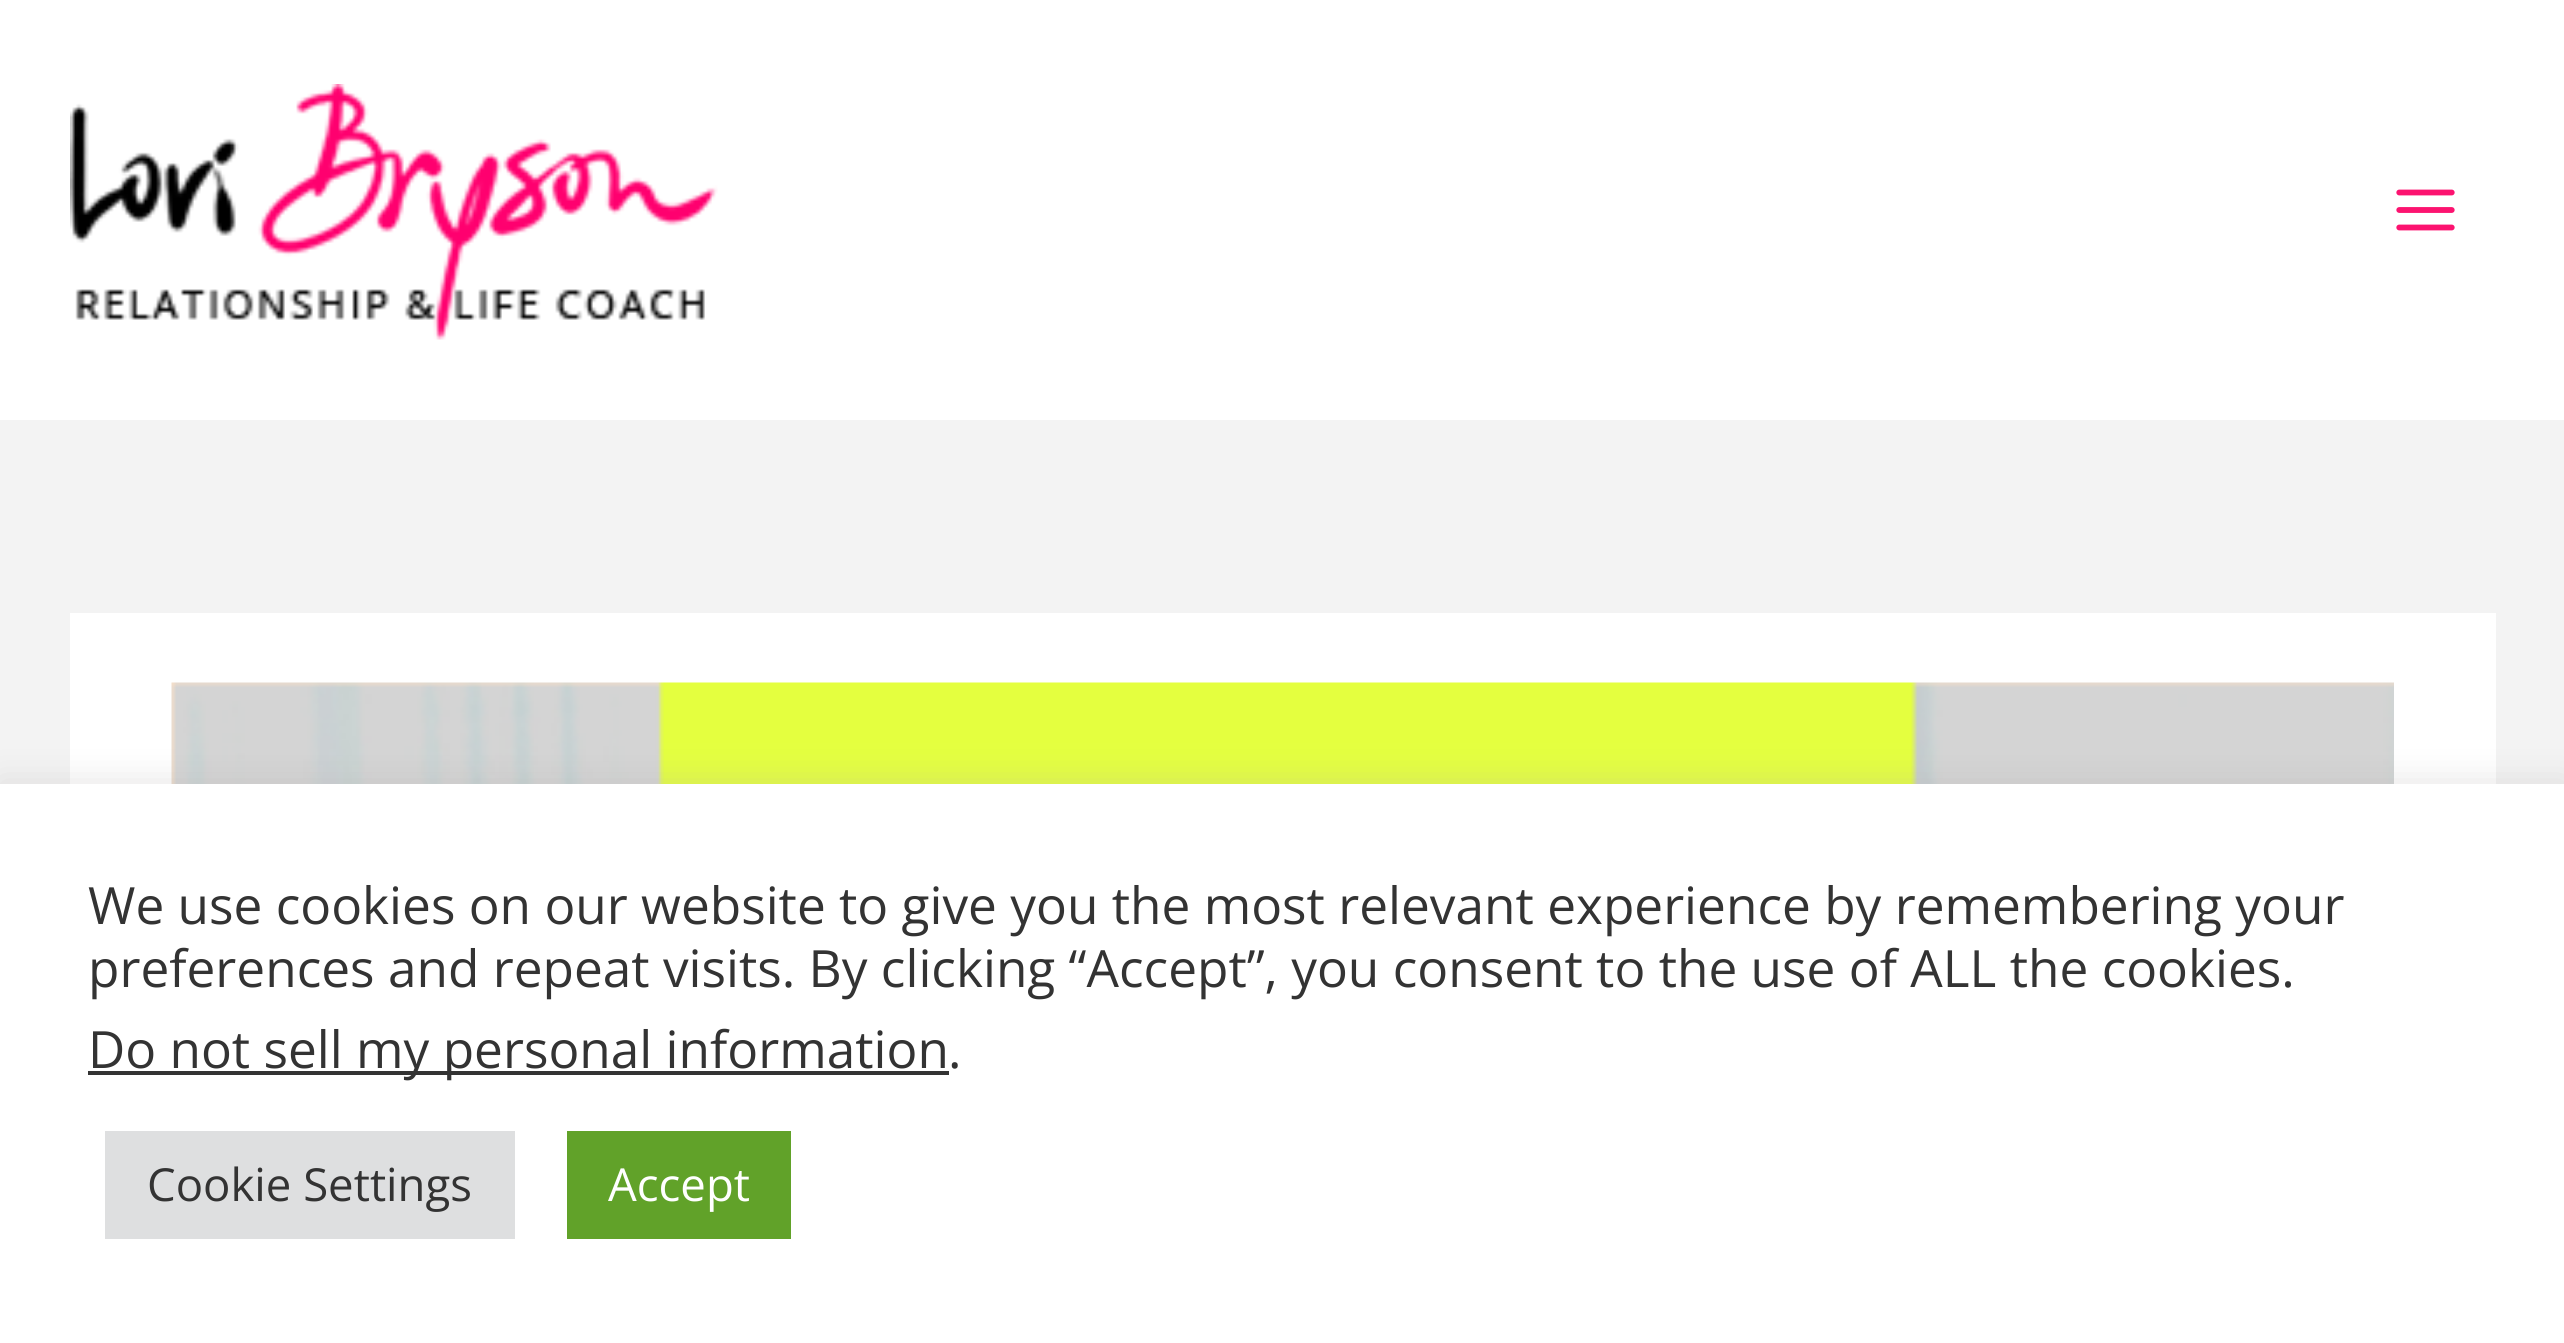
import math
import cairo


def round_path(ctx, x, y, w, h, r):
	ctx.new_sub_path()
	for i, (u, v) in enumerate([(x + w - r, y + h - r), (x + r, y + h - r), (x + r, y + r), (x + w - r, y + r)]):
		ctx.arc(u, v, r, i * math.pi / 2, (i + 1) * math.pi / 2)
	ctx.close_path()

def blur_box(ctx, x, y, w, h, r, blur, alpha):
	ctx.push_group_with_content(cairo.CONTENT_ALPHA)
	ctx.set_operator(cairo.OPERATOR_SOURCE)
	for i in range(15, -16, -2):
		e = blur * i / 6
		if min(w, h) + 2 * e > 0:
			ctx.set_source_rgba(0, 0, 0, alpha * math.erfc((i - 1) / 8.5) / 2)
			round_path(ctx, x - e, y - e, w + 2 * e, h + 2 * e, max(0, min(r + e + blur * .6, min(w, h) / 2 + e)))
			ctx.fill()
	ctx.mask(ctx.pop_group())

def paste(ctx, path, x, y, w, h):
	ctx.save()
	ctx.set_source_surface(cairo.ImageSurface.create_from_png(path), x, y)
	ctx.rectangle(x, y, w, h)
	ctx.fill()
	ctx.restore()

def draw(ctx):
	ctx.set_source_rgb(0.953, 0.953, 0.953)
	ctx.paint()
	ctx.set_source_rgb(1, 1, 1)
	ctx.rectangle(0, 0, 2564, 420)
	ctx.fill()
	paste(ctx, 'media/1.png', 70, 84, 648, 256)
	paste(ctx, 'media/2.png', 2396, 189, 59, 42)
	ctx.rectangle(70, 613, 2426, 171)
	ctx.fill()
	paste(ctx, 'media/3.png', 171, 682, 2223, 102)
	ctx.set_source_rgb(0.675, 0.671, 0.671)
	blur_box(ctx, 0, 781, 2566, 560, 0, 17.5, 0.3)
	ctx.set_source_rgb(1, 1, 1)
	ctx.rectangle(0, 784, 2564, 559)
	ctx.fill()
	ctx.select_font_face('Open Sans')
	ctx.set_font_size(51.35)
	ctx.set_source_rgb(0.2, 0.2, 0.2)
	ctx.move_to(88, 924)
	ctx.show_text('We use cookies on our website to give you the most relevant experience by remembering your')
	ctx.move_to(88, 987)
	ctx.show_text('preferences and repeat visits. By clicking “Accept”, you consent to the use of ALL the cookies.')
	ctx.rectangle(88, 1071, 861, 4)
	ctx.fill()
	ctx.move_to(88, 1068)
	ctx.show_text('Do not sell my personal information')
	ctx.move_to(948, 1068)
	ctx.show_text('.')
	ctx.set_source_rgb(0.871, 0.875, 0.878)
	ctx.rectangle(105, 1131, 410, 108)
	ctx.fill()
	ctx.set_font_size(45.5)
	ctx.set_source_rgb(0.2, 0.2, 0.2)
	ctx.move_to(147, 1201)
	ctx.show_text('Cookie Settings')
	ctx.set_source_rgb(0.38, 0.635, 0.161)
	ctx.rectangle(567, 1131, 224, 108)
	ctx.fill()
	ctx.set_source_rgb(1, 1, 1)
	ctx.move_to(608, 1201)
	ctx.show_text('Accept')


surface = cairo.ImageSurface(cairo.FORMAT_RGB24, 2564, 1343)
ctx = cairo.Context(surface)
options = cairo.FontOptions()
options.set_hint_metrics(cairo.HINT_METRICS_OFF)
options.set_hint_style(cairo.HINT_STYLE_NONE)
ctx.set_font_options(options)
ctx.set_miter_limit(4)
draw(ctx)
surface.write_to_png('image.png')
